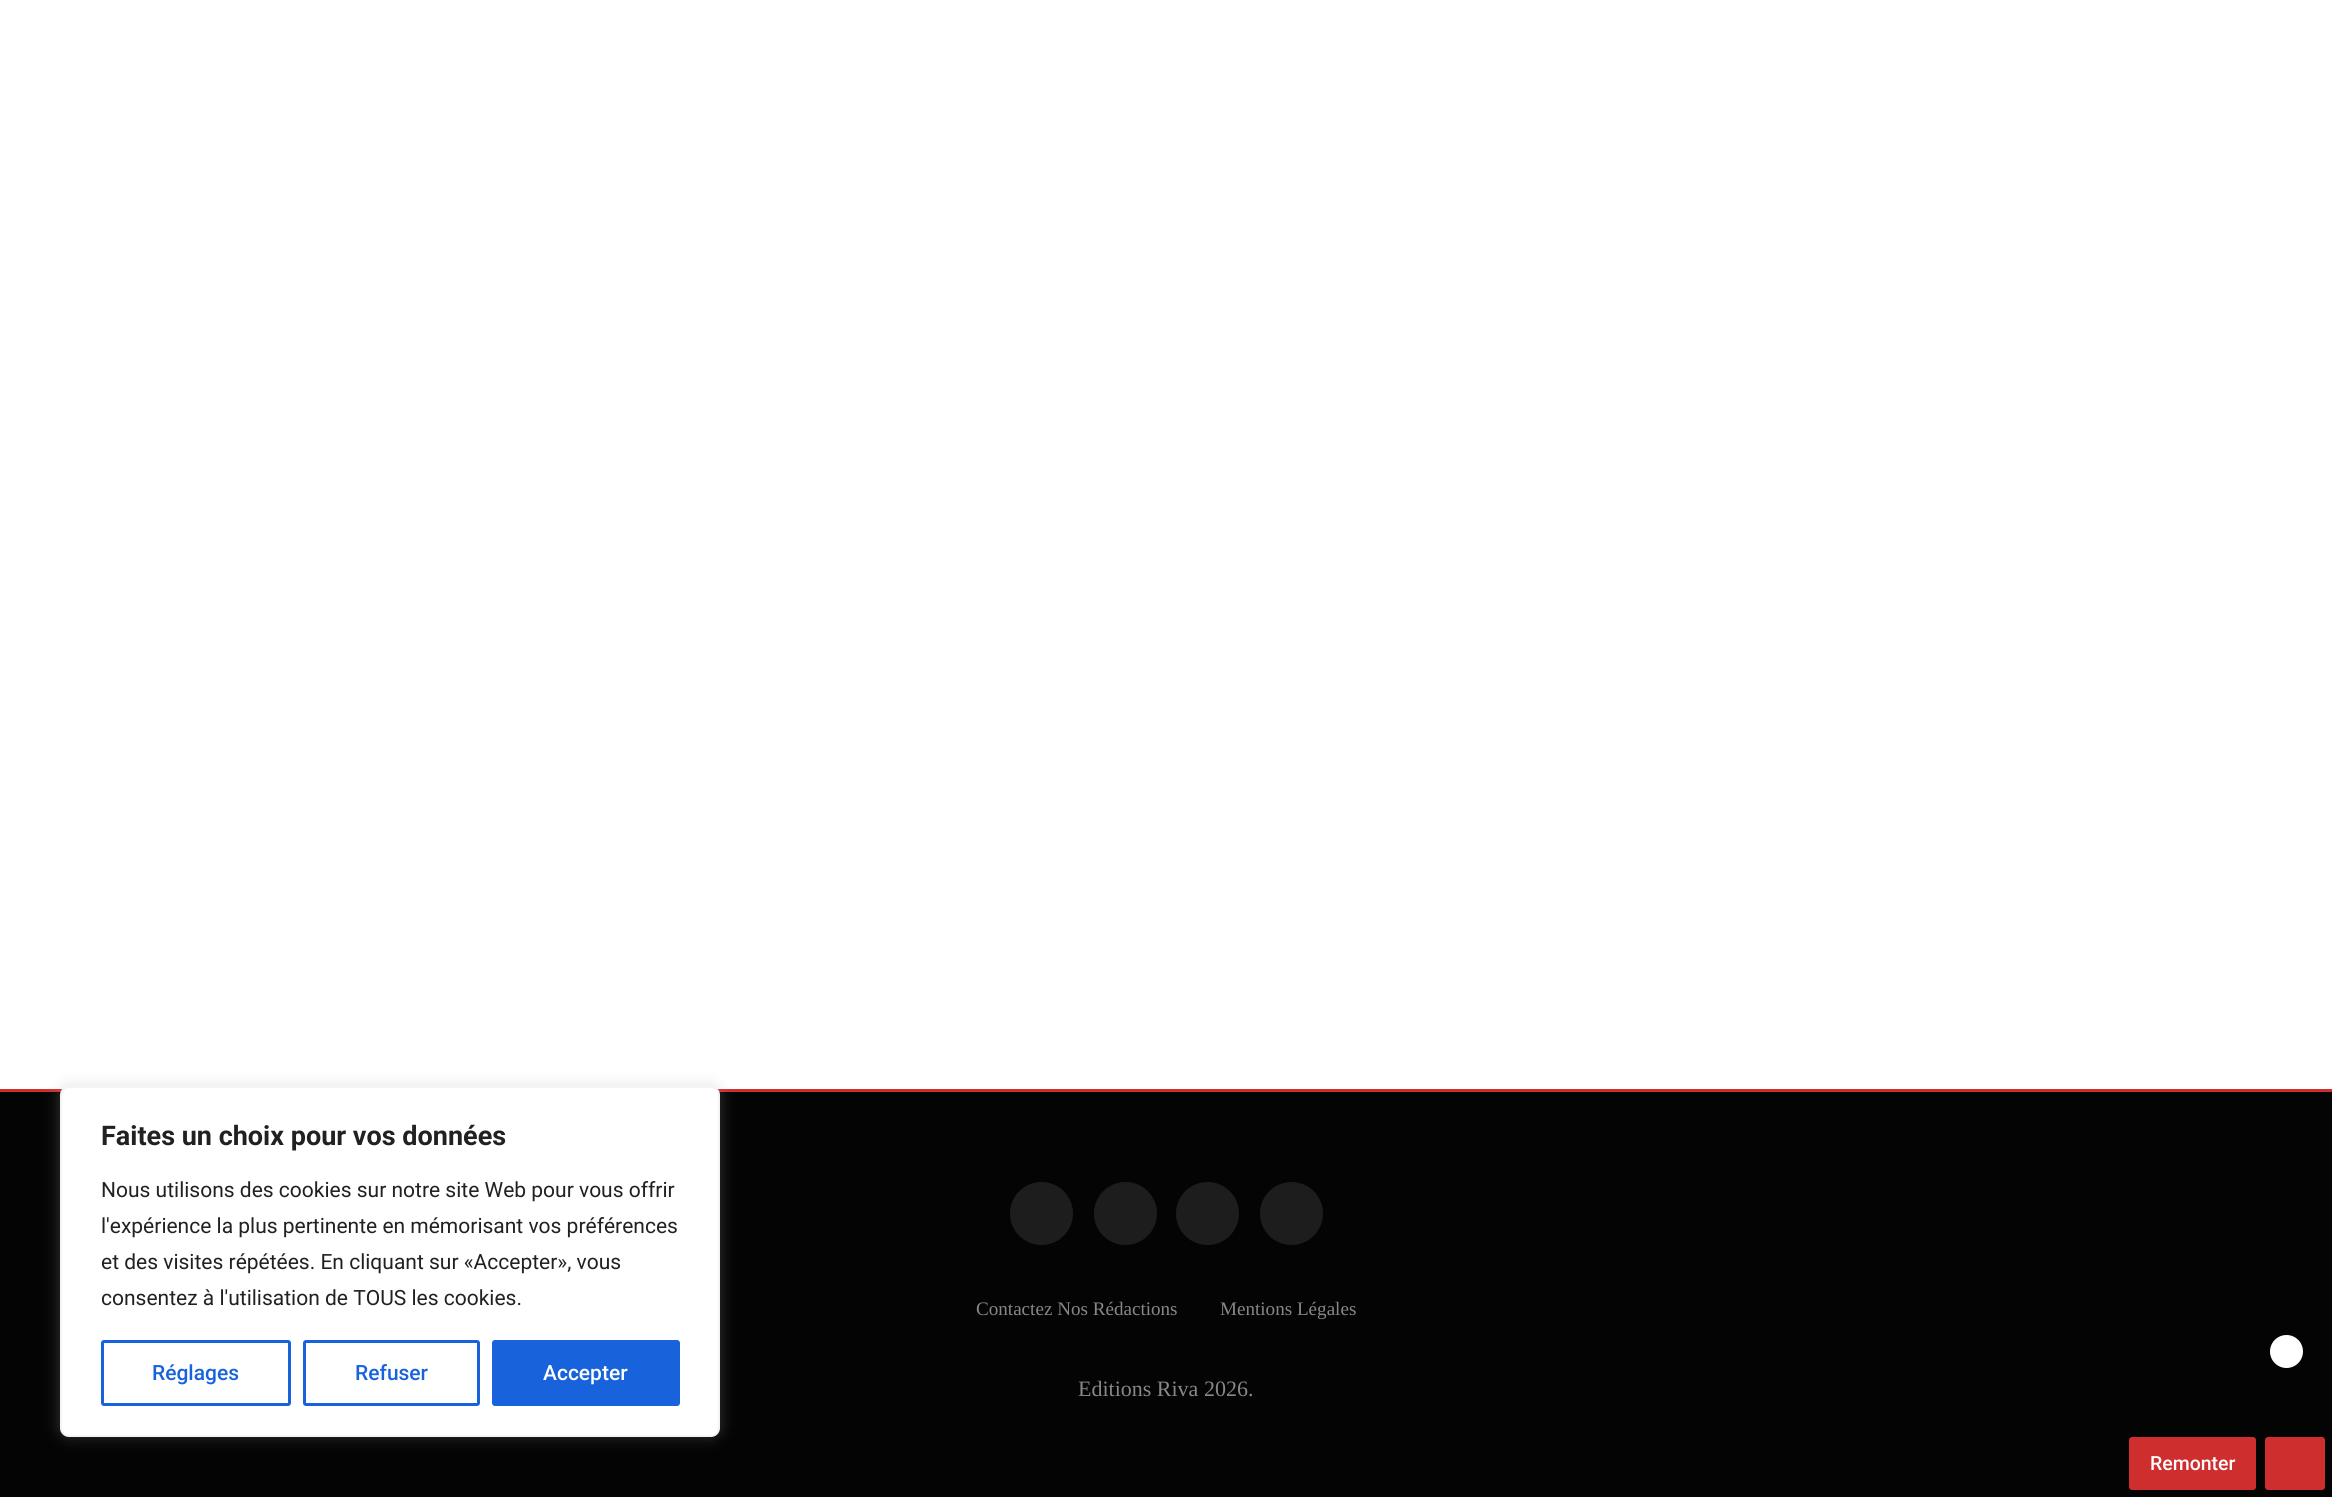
import math
import cairo


def round_path(ctx, x, y, w, h, r):
	ctx.new_sub_path()
	for i, (u, v) in enumerate([(x + w - r, y + h - r), (x + r, y + h - r), (x + r, y + r), (x + w - r, y + r)]):
		ctx.arc(u, v, r, i * math.pi / 2, (i + 1) * math.pi / 2)
	ctx.close_path()

def blur_box(ctx, x, y, w, h, r, blur, alpha):
	ctx.push_group_with_content(cairo.CONTENT_ALPHA)
	ctx.set_operator(cairo.OPERATOR_SOURCE)
	for i in range(15, -16, -2):
		e = blur * i / 6
		if min(w, h) + 2 * e > 0:
			ctx.set_source_rgba(0, 0, 0, alpha * math.erfc((i - 1) / 8.5) / 2)
			round_path(ctx, x - e, y - e, w + 2 * e, h + 2 * e, max(0, min(r + e + blur * .6, min(w, h) / 2 + e)))
			ctx.fill()
	ctx.mask(ctx.pop_group())

def draw(ctx):
	ctx.set_source_rgb(1, 1, 1)
	ctx.paint()
	ctx.set_source_rgb(0.812, 0.18, 0.18)
	ctx.rectangle(0, 1089, 2332, 3)
	ctx.fill()
	ctx.set_source_rgb(0.016, 0.016, 0.016)
	ctx.rectangle(0, 1092, 2332, 405)
	ctx.fill()
	ctx.set_source_rgb(0.675, 0.671, 0.671)
	blur_box(ctx, 60, 1085, 660, 351, 9, 7.5, 0.3)
	ctx.set_source_rgb(1, 1, 1)
	round_path(ctx, 61, 1087, 658, 349, 8)
	ctx.fill_preserve()
	ctx.set_source_rgb(0.957, 0.957, 0.957)
	ctx.stroke()
	ctx.select_font_face('Roboto', cairo.FONT_SLANT_NORMAL, cairo.FONT_WEIGHT_BOLD)
	ctx.set_font_size(27)
	ctx.set_source_rgb(0.129, 0.129, 0.129)
	ctx.move_to(101, 1145)
	ctx.show_text('Faites un choix pour vos données')
	ctx.select_font_face('Roboto')
	ctx.set_font_size(21)
	for x, y, s in [
		(101, 1197, 'Nous utilisons des cookies sur notre site Web pour vous offrir'),
		(101, 1233, 'l\'expérience la plus pertinente en mémorisant vos préférences'),
		(101, 1269, 'et des visites répétées. En cliquant sur «Accepter», vous'),
		(101, 1305, 'consentez à l\'utilisation de TOUS les cookies.'),
	]:
		ctx.move_to(x, y)
		ctx.show_text(s)
	round_path(ctx, 102.5, 1341.5, 187, 63, 1.5)
	ctx.set_source_rgb(0.094, 0.388, 0.863)
	ctx.set_line_width(3)
	ctx.stroke()
	ctx.select_font_face('Roboto Medium')
	ctx.move_to(152, 1380)
	ctx.show_text('Réglages')
	round_path(ctx, 304.5, 1341.5, 174, 63, 1.5)
	ctx.stroke()
	ctx.move_to(355, 1380)
	ctx.show_text('Refuser')
	round_path(ctx, 493.5, 1341.5, 185, 63, 1.5)
	ctx.fill_preserve()
	ctx.stroke()
	ctx.set_source_rgb(1, 1, 1)
	ctx.move_to(543, 1380)
	ctx.show_text('Accepter')
	ctx.save()
	round_path(ctx, 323, -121, 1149, 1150, 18)
	ctx.clip()
	ctx.set_fill_rule(cairo.FILL_RULE_EVEN_ODD)
	ctx.new_path()
	ctx.move_to(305, 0)
	ctx.line_to(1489, 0)
	ctx.line_to(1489, 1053)
	ctx.line_to(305, 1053)
	ctx.close_path()
	ctx.move_to(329, -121)
	ctx.line_to(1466, -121)
	ctx.curve_to(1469.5, -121, 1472, -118.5, 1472, -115)
	ctx.line_to(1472, 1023)
	ctx.curve_to(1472, 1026.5, 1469.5, 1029, 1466, 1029)
	ctx.line_to(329, 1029)
	ctx.curve_to(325.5, 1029, 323, 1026.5, 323, 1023)
	ctx.line_to(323, -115)
	ctx.curve_to(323, -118.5, 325.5, -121, 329, -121)
	ctx.close_path()
	ctx.clip()
	ctx.set_source_rgb(0.027, 0.039, 0.098)
	blur_box(ctx, 327, -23, 1140, 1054, 1.5, 7, 0.35)
	ctx.restore()
	ctx.set_source_rgb(0.114, 0.114, 0.114)
	ctx.arc(1041.5, 1213.5, 31.5, 0, 2 * math.pi)
	ctx.fill()
	ctx.arc(1125.5, 1213.5, 31.5, 0, 2 * math.pi)
	ctx.fill()
	ctx.arc(1207.5, 1213.5, 31.5, 0, 2 * math.pi)
	ctx.fill()
	ctx.arc(1291.5, 1213.5, 31.5, 0, 2 * math.pi)
	ctx.fill()
	ctx.select_font_face('Liberation Serif')
	ctx.set_font_size(19.1)
	ctx.set_source_rgb(0.529, 0.529, 0.529)
	ctx.move_to(976, 1315)
	ctx.show_text('Contactez Nos Rédactions')
	ctx.move_to(1220, 1315)
	ctx.show_text('Mentions Légales')
	ctx.set_font_size(22)
	ctx.move_to(1078, 1396)
	ctx.show_text('Editions Riva 2026.')
	ctx.set_source_rgb(1, 1, 1)
	ctx.new_path()
	ctx.arc(2286.5, 1351.5, 16.5, 0, 2 * math.pi)
	ctx.fill()
	ctx.set_source_rgb(0.812, 0.18, 0.18)
	round_path(ctx, 2129, 1437, 127, 53, 3)
	ctx.fill()
	ctx.select_font_face('Roboto Medium')
	ctx.set_font_size(19.5)
	ctx.set_source_rgb(1, 1, 1)
	ctx.move_to(2150, 1470)
	ctx.show_text('Remonter')
	ctx.set_source_rgb(0.812, 0.18, 0.18)
	round_path(ctx, 2265, 1437, 60, 53, 3)
	ctx.fill()


surface = cairo.ImageSurface(cairo.FORMAT_RGB24, 2332, 1497)
ctx = cairo.Context(surface)
options = cairo.FontOptions()
options.set_hint_metrics(cairo.HINT_METRICS_OFF)
options.set_hint_style(cairo.HINT_STYLE_NONE)
ctx.set_font_options(options)
ctx.set_miter_limit(4)
draw(ctx)
surface.write_to_png('image.png')
